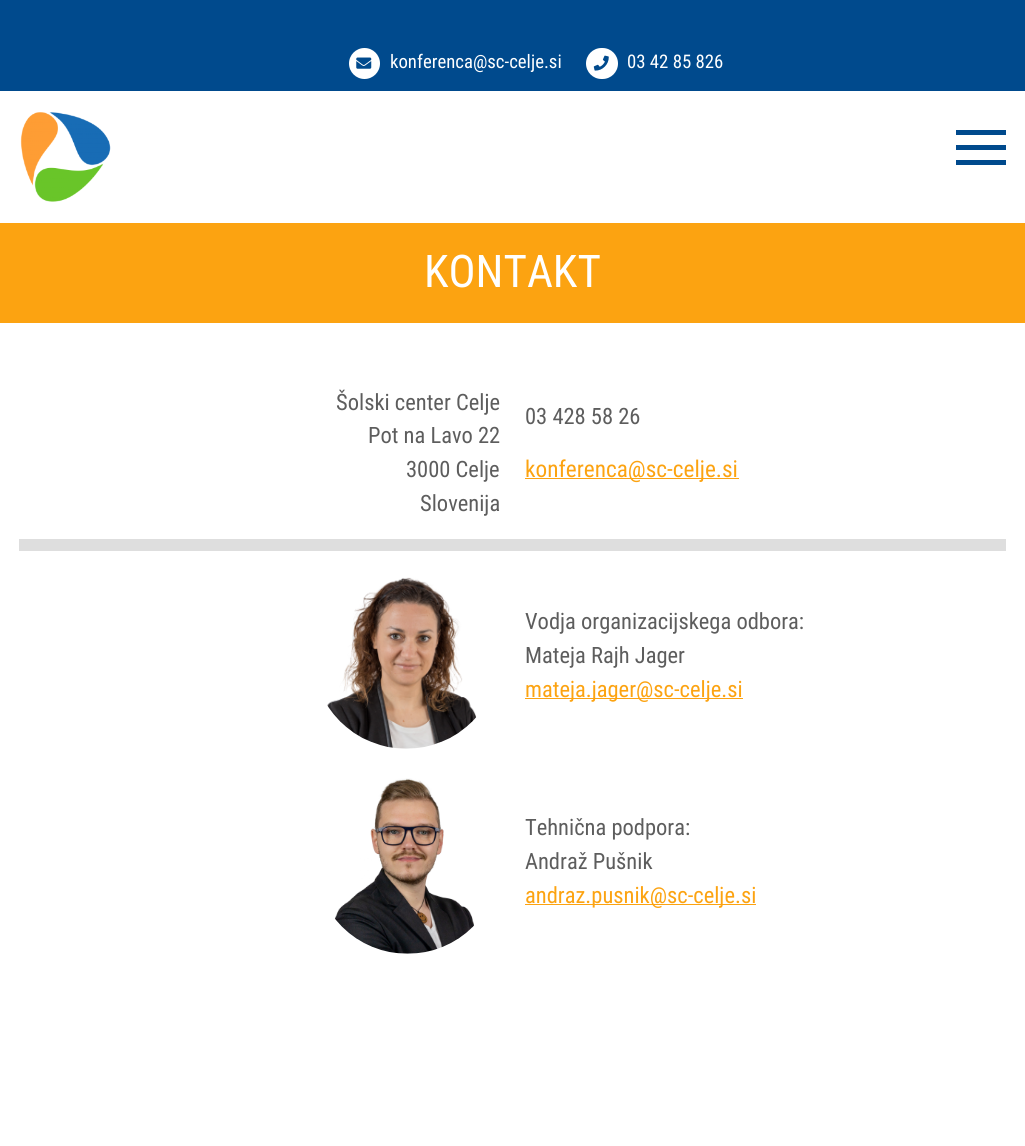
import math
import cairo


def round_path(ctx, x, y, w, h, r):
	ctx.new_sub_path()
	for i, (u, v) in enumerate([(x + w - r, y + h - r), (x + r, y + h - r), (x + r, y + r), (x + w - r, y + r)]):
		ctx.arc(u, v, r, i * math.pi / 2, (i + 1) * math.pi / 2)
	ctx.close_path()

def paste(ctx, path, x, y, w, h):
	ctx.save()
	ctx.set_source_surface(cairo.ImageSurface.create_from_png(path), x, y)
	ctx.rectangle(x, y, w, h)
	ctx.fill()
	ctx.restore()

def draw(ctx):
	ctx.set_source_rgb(1, 1, 1)
	ctx.paint()
	ctx.set_source_rgb(0, 0.29, 0.553)
	ctx.rectangle(0, 0, 1025, 91)
	ctx.fill()
	ctx.set_source_rgb(1, 1, 1)
	ctx.arc(364.5, 63.5, 15.5, 0, 2 * math.pi)
	ctx.fill()
	paste(ctx, 'media/1.png', 356, 57, 16, 12)
	ctx.select_font_face('Roboto Condensed')
	ctx.set_font_size(18.75)
	ctx.move_to(390, 68)
	ctx.show_text('konferenca@sc-celje.si')
	round_path(ctx, 586, 48, 32, 31, 15.5)
	ctx.fill()
	paste(ctx, 'media/2.png', 593, 55, 16, 16)
	ctx.move_to(627, 68)
	ctx.show_text('03 42 85 826')
	paste(ctx, 'media/3.png', 20, 112, 91, 90)
	ctx.set_source_rgb(0, 0.29, 0.553)
	ctx.rectangle(956, 130, 50, 5)
	ctx.rectangle(956, 145, 50, 5)
	ctx.rectangle(956, 160, 50, 5)
	ctx.fill()
	ctx.set_source_rgb(0.988, 0.639, 0.067)
	ctx.rectangle(0, 223, 1025, 100)
	ctx.fill()
	ctx.set_font_size(45)
	ctx.set_source_rgb(1, 1, 1)
	ctx.move_to(424, 287)
	ctx.show_text('KONTAKT')
	ctx.set_font_size(22.5)
	ctx.set_source_rgb(0.365, 0.365, 0.365)
	for x, y, s in [
		(336, 410, 'Šolski center Celje'),
		(368, 443, 'Pot na Lavo 22'),
		(406, 477, '3000 Celje'),
		(420, 511, 'Slovenija'),
		(525, 424, '03 428 58 26'),
	]:
		ctx.move_to(x, y)
		ctx.show_text(s)
	ctx.set_source_rgb(0.988, 0.639, 0.067)
	ctx.rectangle(525, 478, 214, 1)
	ctx.fill()
	ctx.set_font_size(23.25)
	ctx.move_to(525, 477)
	ctx.show_text('konferenca@sc-celje.si')
	ctx.set_source_rgb(0.871, 0.871, 0.871)
	ctx.rectangle(19, 539, 987, 12)
	ctx.fill()
	paste(ctx, 'media/4.png', 327, 577, 150, 172)
	ctx.set_font_size(22.5)
	ctx.set_source_rgb(0.365, 0.365, 0.365)
	ctx.move_to(525, 629)
	ctx.show_text('Vodja organizacijskega odbora:')
	ctx.move_to(525, 663)
	ctx.show_text('Mateja Rajh Jager')
	ctx.set_source_rgb(0.988, 0.639, 0.067)
	ctx.rectangle(525, 698, 218, 1)
	ctx.fill()
	ctx.move_to(525, 697)
	ctx.show_text('mateja.jager@sc-celje.si')
	paste(ctx, 'media/5.png', 334, 778, 140, 176)
	ctx.set_source_rgb(0.365, 0.365, 0.365)
	ctx.move_to(525, 835)
	ctx.show_text('Tehnična podpora:')
	ctx.move_to(525, 869)
	ctx.show_text('Andraž Pušnik')
	ctx.set_source_rgb(0.988, 0.639, 0.067)
	ctx.rectangle(525, 904, 231, 1)
	ctx.fill()
	ctx.move_to(525, 903)
	ctx.show_text('andraz.pusnik@sc-celje.si')


surface = cairo.ImageSurface(cairo.FORMAT_RGB24, 1025, 1146)
ctx = cairo.Context(surface)
options = cairo.FontOptions()
options.set_hint_metrics(cairo.HINT_METRICS_OFF)
options.set_hint_style(cairo.HINT_STYLE_NONE)
ctx.set_font_options(options)
ctx.set_miter_limit(4)
draw(ctx)
surface.write_to_png('image.png')
